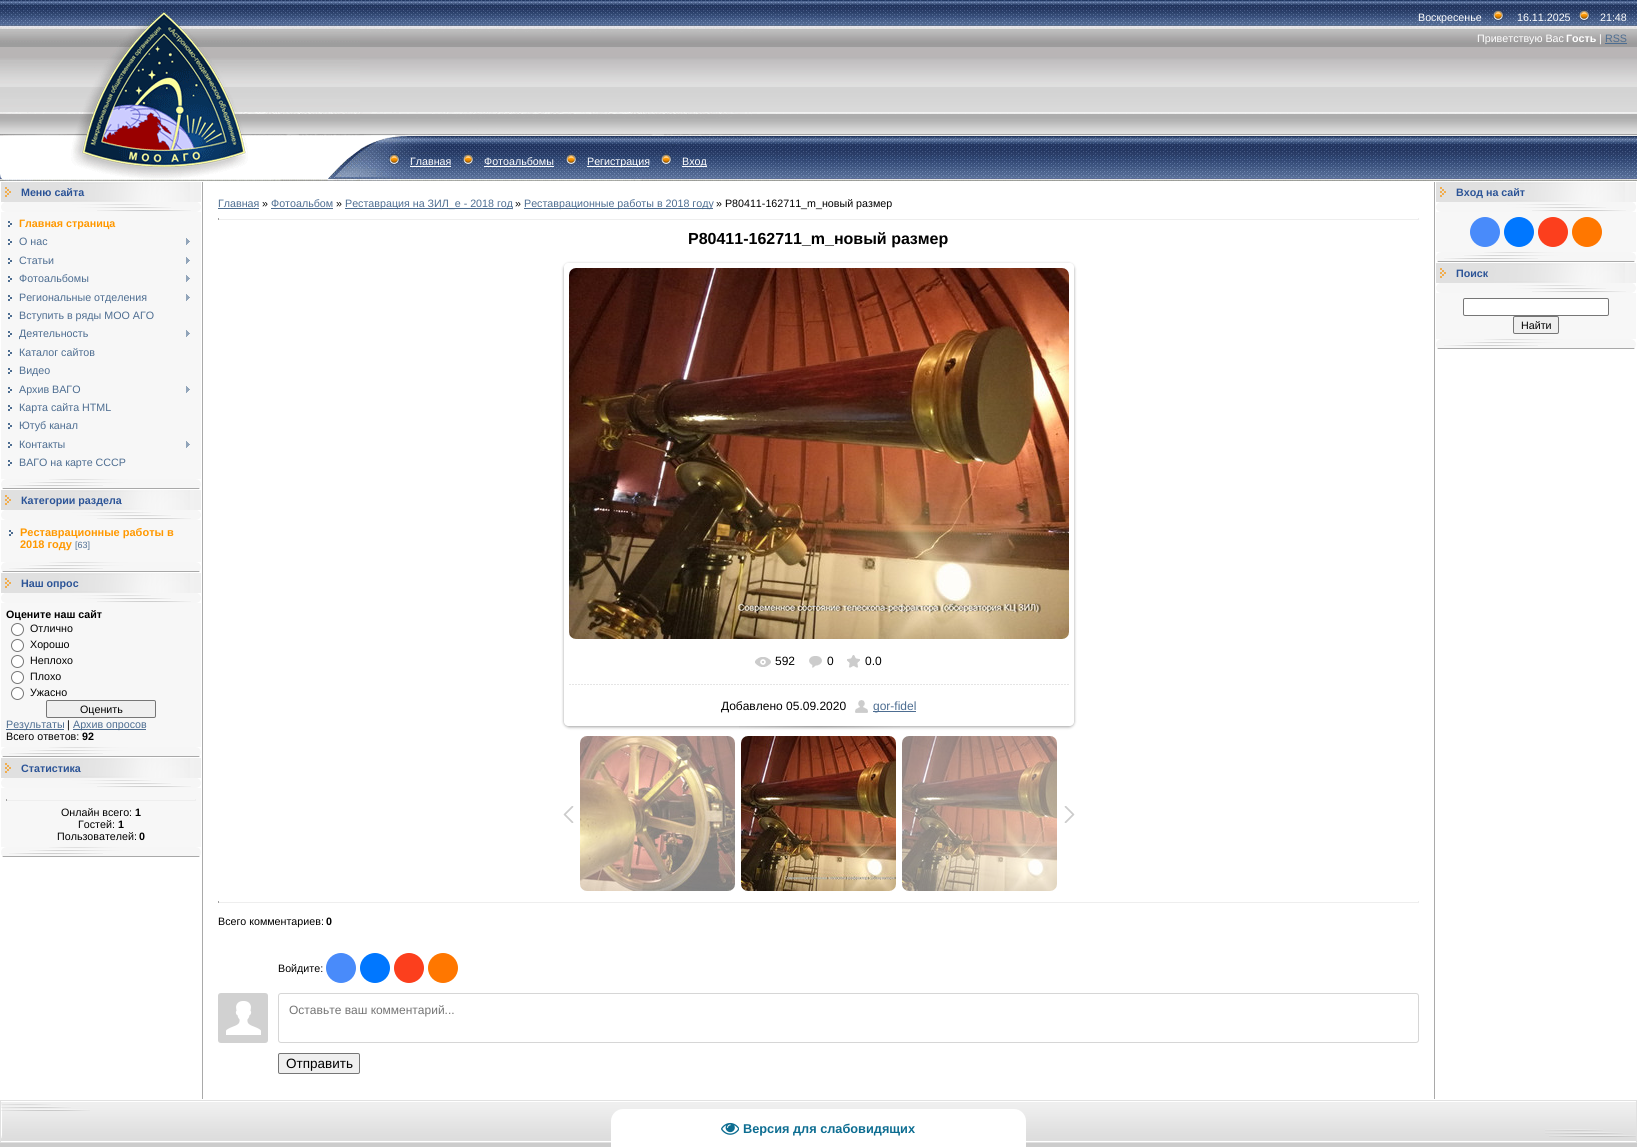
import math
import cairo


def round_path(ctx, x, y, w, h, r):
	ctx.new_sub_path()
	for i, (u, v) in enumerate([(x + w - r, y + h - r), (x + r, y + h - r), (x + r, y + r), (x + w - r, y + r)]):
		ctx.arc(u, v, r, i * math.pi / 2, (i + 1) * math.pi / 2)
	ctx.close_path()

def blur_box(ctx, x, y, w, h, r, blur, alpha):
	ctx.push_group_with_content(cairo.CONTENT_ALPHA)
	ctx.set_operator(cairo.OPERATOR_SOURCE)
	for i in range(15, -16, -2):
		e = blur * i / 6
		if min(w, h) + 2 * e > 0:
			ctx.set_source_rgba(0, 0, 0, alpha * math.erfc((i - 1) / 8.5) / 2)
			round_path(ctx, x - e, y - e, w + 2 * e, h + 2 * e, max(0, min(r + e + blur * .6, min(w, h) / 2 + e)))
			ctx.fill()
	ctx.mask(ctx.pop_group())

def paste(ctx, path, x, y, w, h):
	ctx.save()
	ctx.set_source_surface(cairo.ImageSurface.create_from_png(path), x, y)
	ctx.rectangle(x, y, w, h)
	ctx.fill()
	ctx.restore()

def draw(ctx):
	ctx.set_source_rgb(1, 1, 1)
	ctx.paint()
	paste(ctx, 'media/1.png', 0, 0, 1637, 181)
	paste(ctx, 'media/2.png', 0, 0, 360, 181)
	paste(ctx, 'media/3.png', 360, 0, 416, 181)
	ctx.select_font_face('Liberation Sans')
	ctx.set_font_size(10.7)
	ctx.set_source_rgb(1, 1, 1)
	ctx.move_to(1418, 21)
	ctx.show_text('Воскресенье')
	paste(ctx, 'media/4.png', 1493, 10, 11, 11)
	ctx.move_to(1517, 21)
	ctx.show_text('16.11.2025')
	paste(ctx, 'media/5.png', 1579, 10, 11, 11)
	ctx.move_to(1600, 21)
	ctx.show_text('21:48')
	ctx.move_to(1477, 42)
	ctx.show_text('Приветствую Вас')
	ctx.select_font_face('Liberation Sans', cairo.FONT_SLANT_NORMAL, cairo.FONT_WEIGHT_BOLD)
	ctx.move_to(1566, 42)
	ctx.show_text('Гость')
	ctx.select_font_face('Liberation Sans')
	ctx.move_to(1599, 42)
	ctx.show_text('|')
	ctx.set_source_rgb(0.302, 0.427, 0.569)
	ctx.move_to(1605, 42)
	ctx.show_text('RSS')
	ctx.rectangle(1605, 43, 22, 1)
	ctx.fill()
	paste(ctx, 'media/6.png', 389, 154, 11, 11)
	ctx.set_source_rgb(1, 1, 1)
	ctx.move_to(410, 165)
	ctx.show_text('Главная')
	ctx.rectangle(410, 166, 41, 1)
	ctx.fill()
	paste(ctx, 'media/7.png', 463, 154, 11, 11)
	ctx.move_to(484, 165)
	ctx.show_text('Фотоальбомы')
	ctx.rectangle(484, 166, 70, 1)
	ctx.fill()
	paste(ctx, 'media/8.png', 566, 154, 11, 11)
	ctx.rectangle(587, 166, 62, 1)
	ctx.fill()
	ctx.move_to(587, 165)
	ctx.show_text('Регистрация')
	paste(ctx, 'media/9.png', 661, 154, 11, 11)
	ctx.rectangle(682, 166, 25, 1)
	ctx.fill()
	ctx.move_to(682, 165)
	ctx.show_text('Вход')
	paste(ctx, 'media/10.png', 1, 182, 200, 20)
	ctx.select_font_face('Liberation Sans', cairo.FONT_SLANT_NORMAL, cairo.FONT_WEIGHT_BOLD)
	ctx.set_source_rgb(0.173, 0.329, 0.592)
	ctx.move_to(21, 196)
	ctx.show_text('Меню сайта')
	paste(ctx, 'media/11.png', 1, 202, 200, 10)
	ctx.set_source_rgb(0.965, 0.965, 0.965)
	ctx.rectangle(1, 212, 200, 267)
	ctx.fill()
	paste(ctx, 'media/12.png', 8, 221, 4, 6)
	ctx.set_source_rgb(1, 0.596, 0)
	ctx.move_to(19, 227)
	ctx.show_text('Главная страница')
	paste(ctx, 'media/12.png', 8, 239, 4, 6)
	ctx.select_font_face('Liberation Sans')
	ctx.set_source_rgb(0.302, 0.427, 0.569)
	ctx.move_to(19, 245)
	ctx.show_text('О нас')
	paste(ctx, 'media/13.png', 186, 238, 4, 7)
	paste(ctx, 'media/12.png', 8, 258, 4, 6)
	ctx.move_to(19, 264)
	ctx.show_text('Статьи')
	paste(ctx, 'media/13.png', 186, 257, 4, 7)
	paste(ctx, 'media/12.png', 8, 276, 4, 6)
	ctx.move_to(19, 282)
	ctx.show_text('Фотоальбомы')
	paste(ctx, 'media/13.png', 186, 275, 4, 7)
	paste(ctx, 'media/12.png', 8, 295, 4, 6)
	ctx.move_to(19, 301)
	ctx.show_text('Региональные отделения')
	paste(ctx, 'media/13.png', 186, 294, 4, 7)
	paste(ctx, 'media/12.png', 8, 313, 4, 6)
	ctx.move_to(19, 319)
	ctx.show_text('Вступить в ряды МОО АГО')
	paste(ctx, 'media/12.png', 8, 331, 4, 6)
	ctx.move_to(19, 337)
	ctx.show_text('Деятельность')
	paste(ctx, 'media/13.png', 186, 330, 4, 7)
	paste(ctx, 'media/12.png', 8, 350, 4, 6)
	ctx.move_to(19, 356)
	ctx.show_text('Каталог сайтов')
	paste(ctx, 'media/12.png', 8, 368, 4, 6)
	ctx.move_to(19, 374)
	ctx.show_text('Видео')
	paste(ctx, 'media/12.png', 8, 387, 4, 6)
	ctx.move_to(19, 393)
	ctx.show_text('Архив ВАГО')
	paste(ctx, 'media/13.png', 186, 386, 4, 7)
	paste(ctx, 'media/12.png', 8, 405, 4, 6)
	ctx.move_to(19, 411)
	ctx.show_text('Карта сайта HTML')
	paste(ctx, 'media/12.png', 8, 423, 4, 6)
	ctx.move_to(19, 429)
	ctx.show_text('Ютуб канал')
	paste(ctx, 'media/12.png', 8, 442, 4, 6)
	ctx.move_to(19, 448)
	ctx.show_text('Контакты')
	paste(ctx, 'media/13.png', 186, 441, 4, 7)
	paste(ctx, 'media/12.png', 8, 460, 4, 6)
	ctx.move_to(19, 466)
	ctx.show_text('ВАГО на карте СССР')
	paste(ctx, 'media/14.png', 1, 479, 200, 10)
	paste(ctx, 'media/10.png', 1, 490, 200, 20)
	ctx.select_font_face('Liberation Sans', cairo.FONT_SLANT_NORMAL, cairo.FONT_WEIGHT_BOLD)
	ctx.set_source_rgb(0.173, 0.329, 0.592)
	ctx.move_to(21, 504)
	ctx.show_text('Категории раздела')
	paste(ctx, 'media/11.png', 1, 510, 200, 10)
	ctx.set_source_rgb(0.965, 0.965, 0.965)
	ctx.rectangle(1, 520, 200, 42)
	ctx.fill()
	paste(ctx, 'media/12.png', 9, 530, 4, 6)
	ctx.set_font_size(11)
	ctx.set_source_rgb(1, 0.596, 0)
	ctx.move_to(20, 536)
	ctx.show_text('Реставрационные работы в')
	ctx.move_to(20, 548)
	ctx.show_text('2018 году')
	ctx.select_font_face('Liberation Sans')
	ctx.set_font_size(9)
	ctx.set_source_rgb(0.302, 0.427, 0.569)
	ctx.move_to(75, 548)
	ctx.show_text('[63]')
	paste(ctx, 'media/14.png', 1, 562, 200, 10)
	paste(ctx, 'media/10.png', 1, 573, 200, 20)
	ctx.select_font_face('Liberation Sans', cairo.FONT_SLANT_NORMAL, cairo.FONT_WEIGHT_BOLD)
	ctx.set_font_size(10.7)
	ctx.set_source_rgb(0.173, 0.329, 0.592)
	ctx.move_to(21, 587)
	ctx.show_text('Наш опрос')
	paste(ctx, 'media/11.png', 1, 593, 200, 10)
	ctx.set_source_rgb(0.965, 0.965, 0.965)
	ctx.rectangle(1, 603, 200, 144)
	ctx.fill()
	ctx.set_source_rgb(0, 0, 0)
	ctx.move_to(6, 618)
	ctx.show_text('Оцените наш сайт')
	ctx.set_source_rgb(1, 1, 1)
	ctx.new_path()
	ctx.arc(17.5, 629.5, 6, 0, 2 * math.pi)
	ctx.fill_preserve()
	ctx.set_source_rgb(0.463, 0.463, 0.463)
	ctx.set_line_width(1)
	ctx.stroke()
	ctx.select_font_face('Liberation Sans')
	ctx.set_source_rgb(0, 0, 0)
	ctx.move_to(30, 632)
	ctx.show_text('Отлично')
	ctx.set_source_rgb(1, 1, 1)
	ctx.new_path()
	ctx.arc(17.5, 645.5, 6, 0, 2 * math.pi)
	ctx.fill_preserve()
	ctx.set_source_rgb(0.463, 0.463, 0.463)
	ctx.stroke()
	ctx.set_source_rgb(0, 0, 0)
	ctx.move_to(30, 648)
	ctx.show_text('Хорошо')
	ctx.set_source_rgb(1, 1, 1)
	ctx.new_path()
	ctx.arc(17.5, 661.5, 6, 0, 2 * math.pi)
	ctx.fill_preserve()
	ctx.set_source_rgb(0.463, 0.463, 0.463)
	ctx.stroke()
	ctx.set_source_rgb(0, 0, 0)
	ctx.move_to(30, 664)
	ctx.show_text('Неплохо')
	ctx.set_source_rgb(1, 1, 1)
	ctx.new_path()
	ctx.arc(17.5, 677.5, 6, 0, 2 * math.pi)
	ctx.fill_preserve()
	ctx.set_source_rgb(0.463, 0.463, 0.463)
	ctx.stroke()
	ctx.set_source_rgb(0, 0, 0)
	ctx.move_to(30, 680)
	ctx.show_text('Плохо')
	ctx.set_source_rgb(1, 1, 1)
	ctx.new_path()
	ctx.arc(17.5, 693.5, 6, 0, 2 * math.pi)
	ctx.fill_preserve()
	ctx.set_source_rgb(0.463, 0.463, 0.463)
	ctx.stroke()
	ctx.set_source_rgb(0, 0, 0)
	ctx.move_to(30, 696)
	ctx.show_text('Ужасно')
	ctx.set_source_rgb(0.937, 0.937, 0.937)
	round_path(ctx, 46.5, 700.5, 109, 17, 1.5)
	ctx.fill_preserve()
	ctx.set_source_rgb(0.463, 0.463, 0.463)
	ctx.stroke()
	ctx.set_source_rgb(0, 0, 0)
	ctx.move_to(80, 713)
	ctx.show_text('Оценить')
	ctx.set_source_rgb(0.302, 0.427, 0.569)
	ctx.rectangle(6, 729, 58, 1)
	ctx.fill()
	ctx.move_to(6, 728)
	ctx.show_text('Результаты')
	ctx.set_source_rgb(0, 0, 0)
	ctx.move_to(67, 728)
	ctx.show_text('|')
	ctx.set_source_rgb(0.302, 0.427, 0.569)
	ctx.rectangle(73, 729, 73, 1)
	ctx.fill()
	ctx.move_to(73, 728)
	ctx.show_text('Архив опросов')
	ctx.set_source_rgb(0, 0, 0)
	ctx.move_to(6, 740)
	ctx.show_text('Всего ответов:')
	ctx.select_font_face('Liberation Sans', cairo.FONT_SLANT_NORMAL, cairo.FONT_WEIGHT_BOLD)
	ctx.move_to(82, 740)
	ctx.show_text('92')
	paste(ctx, 'media/14.png', 1, 747, 200, 10)
	paste(ctx, 'media/10.png', 1, 758, 200, 20)
	ctx.set_source_rgb(0.173, 0.329, 0.592)
	ctx.move_to(21, 772)
	ctx.show_text('Статистика')
	paste(ctx, 'media/11.png', 1, 778, 200, 10)
	ctx.set_source_rgb(0.965, 0.965, 0.965)
	ctx.rectangle(1, 788, 200, 59)
	ctx.fill()
	ctx.set_source_rgb(0.933, 0.933, 0.933)
	ctx.rectangle(195, 799, 1, 2)
	ctx.rectangle(6, 800, 190, 1)
	ctx.fill()
	ctx.set_source_rgb(0.624, 0.624, 0.624)
	ctx.rectangle(6, 799, 1, 2)
	ctx.fill()
	ctx.select_font_face('Liberation Sans')
	ctx.set_source_rgb(0, 0, 0)
	ctx.move_to(61, 816)
	ctx.show_text('Онлайн всего:')
	ctx.select_font_face('Liberation Sans', cairo.FONT_SLANT_NORMAL, cairo.FONT_WEIGHT_BOLD)
	ctx.move_to(135, 816)
	ctx.show_text('1')
	ctx.select_font_face('Liberation Sans')
	ctx.move_to(78, 828)
	ctx.show_text('Гостей:')
	ctx.select_font_face('Liberation Sans', cairo.FONT_SLANT_NORMAL, cairo.FONT_WEIGHT_BOLD)
	ctx.move_to(118, 828)
	ctx.show_text('1')
	ctx.select_font_face('Liberation Sans')
	ctx.move_to(57, 840)
	ctx.show_text('Пользователей:')
	ctx.select_font_face('Liberation Sans', cairo.FONT_SLANT_NORMAL, cairo.FONT_WEIGHT_BOLD)
	ctx.move_to(139, 840)
	ctx.show_text('0')
	paste(ctx, 'media/14.png', 1, 847, 200, 10)
	ctx.set_source_rgb(0.663, 0.663, 0.663)
	ctx.rectangle(1434, 182, 1, 917)
	ctx.fill()
	ctx.rectangle(202, 182, 1, 917)
	ctx.fill()
	ctx.select_font_face('Liberation Sans')
	ctx.set_source_rgb(0.302, 0.427, 0.569)
	ctx.move_to(218, 207)
	ctx.show_text('Главная')
	ctx.rectangle(218, 208, 41, 1)
	ctx.fill()
	ctx.set_source_rgb(0, 0, 0)
	ctx.move_to(262, 207)
	ctx.show_text('»')
	ctx.set_source_rgb(0.302, 0.427, 0.569)
	ctx.move_to(271, 207)
	ctx.show_text('Фотоальбом')
	ctx.rectangle(271, 208, 62, 1)
	ctx.fill()
	ctx.set_source_rgb(0, 0, 0)
	ctx.move_to(336, 207)
	ctx.show_text('»')
	ctx.set_source_rgb(0.302, 0.427, 0.569)
	ctx.rectangle(345, 208, 167, 1)
	ctx.fill()
	ctx.move_to(345, 207)
	ctx.show_text('Реставрация на ЗИЛ_е - 2018 год')
	ctx.set_source_rgb(0, 0, 0)
	ctx.move_to(515, 207)
	ctx.show_text('»')
	ctx.set_source_rgb(0.302, 0.427, 0.569)
	ctx.rectangle(524, 208, 189, 1)
	ctx.fill()
	ctx.move_to(524, 207)
	ctx.show_text('Реставрационные работы в 2018 году')
	ctx.set_source_rgb(0, 0, 0)
	ctx.move_to(716, 207)
	ctx.show_text('» P80411-162711_m_новый размер')
	ctx.set_source_rgb(0.933, 0.933, 0.933)
	ctx.rectangle(1418, 218, 1, 2)
	ctx.rectangle(218, 219, 1201, 1)
	ctx.fill()
	ctx.set_source_rgb(0.624, 0.624, 0.624)
	ctx.rectangle(218, 218, 1, 2)
	ctx.fill()
	ctx.select_font_face('Liberation Sans', cairo.FONT_SLANT_NORMAL, cairo.FONT_WEIGHT_BOLD)
	ctx.set_font_size(16)
	ctx.set_source_rgb(0, 0, 0)
	ctx.move_to(688, 244)
	ctx.show_text('P80411-162711_m_новый размер')
	ctx.save()
	ctx.set_fill_rule(cairo.FILL_RULE_EVEN_ODD)
	ctx.new_path()
	ctx.move_to(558, 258)
	ctx.line_to(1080, 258)
	ctx.line_to(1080, 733)
	ctx.line_to(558, 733)
	ctx.close_path()
	ctx.move_to(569, 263)
	ctx.line_to(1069, 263)
	ctx.curve_to(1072, 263, 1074, 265, 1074, 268)
	ctx.line_to(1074, 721)
	ctx.curve_to(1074, 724, 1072, 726, 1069, 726)
	ctx.line_to(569, 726)
	ctx.curve_to(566, 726, 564, 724, 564, 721)
	ctx.line_to(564, 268)
	ctx.curve_to(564, 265, 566, 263, 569, 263)
	ctx.close_path()
	ctx.clip()
	ctx.set_source_rgb(0, 0, 0)
	blur_box(ctx, 564, 264, 510, 463, 5, 1.5, 0.37)
	ctx.restore()
	paste(ctx, 'media/15.png', 569, 268, 500, 371)
	paste(ctx, 'media/16.png', 755, 657, 16, 10)
	ctx.select_font_face('Liberation Sans')
	ctx.set_font_size(12)
	ctx.move_to(775, 665)
	ctx.show_text('592')
	paste(ctx, 'media/17.png', 809, 656, 13, 12)
	ctx.move_to(827, 665)
	ctx.show_text('0')
	paste(ctx, 'media/18.png', 847, 655, 13, 13)
	ctx.move_to(865, 665)
	ctx.show_text('0.0')
	paste(ctx, 'media/19.png', 569, 684, 500, 1)
	ctx.move_to(721, 710)
	ctx.show_text('Добавлено 05.09.2020')
	paste(ctx, 'media/20.png', 855, 700, 13, 13)
	ctx.set_source_rgb(0.302, 0.427, 0.569)
	ctx.rectangle(873, 711, 43, 1)
	ctx.fill()
	ctx.move_to(873, 710)
	ctx.show_text('gor-fidel')
	paste(ctx, 'media/21.png', 739, 726, 161, 3)
	paste(ctx, 'media/22.png', 563, 806, 11, 17)
	paste(ctx, 'media/23.png', 580, 736, 155, 155)
	paste(ctx, 'media/24.png', 741, 736, 155, 155)
	paste(ctx, 'media/25.png', 902, 736, 155, 155)
	paste(ctx, 'media/26.png', 1064, 806, 11, 17)
	ctx.set_source_rgb(0.933, 0.933, 0.933)
	ctx.rectangle(1418, 901, 1, 2)
	ctx.rectangle(218, 902, 1201, 1)
	ctx.fill()
	ctx.set_source_rgb(0.624, 0.624, 0.624)
	ctx.rectangle(218, 901, 1, 2)
	ctx.fill()
	ctx.set_font_size(10.7)
	ctx.set_source_rgb(0, 0, 0)
	ctx.move_to(218, 925)
	ctx.show_text('Всего комментариев:')
	ctx.select_font_face('Liberation Sans', cairo.FONT_SLANT_NORMAL, cairo.FONT_WEIGHT_BOLD)
	ctx.move_to(326, 925)
	ctx.show_text('0')
	ctx.select_font_face('Liberation Sans')
	ctx.move_to(278, 972)
	ctx.show_text('Войдите:')
	ctx.set_source_rgb(0.286, 0.545, 0.98)
	ctx.new_path()
	ctx.arc(341, 968, 15, 0, 2 * math.pi)
	ctx.fill()
	ctx.set_source_rgb(0, 0.467, 1)
	ctx.arc(375, 968, 15, 0, 2 * math.pi)
	ctx.fill()
	ctx.set_source_rgb(0.988, 0.247, 0.114)
	ctx.arc(409, 968, 15, 0, 2 * math.pi)
	ctx.fill()
	ctx.set_source_rgb(1, 0.467, 0)
	ctx.arc(443, 968, 15, 0, 2 * math.pi)
	ctx.fill()
	paste(ctx, 'media/27.png', 218, 993, 50, 50)
	round_path(ctx, 278.5, 993.5, 1140, 49, 2.5)
	ctx.set_source_rgb(0.839, 0.839, 0.839)
	ctx.stroke()
	ctx.set_font_size(12)
	ctx.set_source_rgb(0.459, 0.459, 0.459)
	ctx.move_to(289, 1014)
	ctx.show_text('Оставьте ваш комментарий...')
	ctx.set_source_rgb(0.937, 0.937, 0.937)
	round_path(ctx, 278.5, 1053.5, 81, 20, 1.5)
	ctx.fill_preserve()
	ctx.set_source_rgb(0.463, 0.463, 0.463)
	ctx.stroke()
	ctx.set_font_size(13.5)
	ctx.set_source_rgb(0, 0, 0)
	ctx.move_to(286, 1068)
	ctx.show_text('Отправить')
	paste(ctx, 'media/10.png', 1436, 182, 200, 20)
	ctx.select_font_face('Liberation Sans', cairo.FONT_SLANT_NORMAL, cairo.FONT_WEIGHT_BOLD)
	ctx.set_font_size(10.7)
	ctx.set_source_rgb(0.173, 0.329, 0.592)
	ctx.move_to(1456, 196)
	ctx.show_text('Вход на сайт')
	paste(ctx, 'media/28.png', 1436, 202, 200, 10)
	ctx.set_source_rgb(0.965, 0.965, 0.965)
	ctx.rectangle(1436, 212, 200, 40)
	ctx.fill()
	ctx.set_source_rgb(0.286, 0.545, 0.98)
	ctx.arc(1485, 232, 15, 0, 2 * math.pi)
	ctx.fill()
	ctx.set_source_rgb(0, 0.467, 1)
	ctx.arc(1519, 232, 15, 0, 2 * math.pi)
	ctx.fill()
	ctx.set_source_rgb(0.988, 0.247, 0.114)
	ctx.arc(1553, 232, 15, 0, 2 * math.pi)
	ctx.fill()
	ctx.set_source_rgb(1, 0.467, 0)
	ctx.arc(1587, 232, 15, 0, 2 * math.pi)
	ctx.fill()
	paste(ctx, 'media/29.png', 1436, 252, 200, 10)
	paste(ctx, 'media/10.png', 1436, 263, 200, 20)
	ctx.set_source_rgb(0.173, 0.329, 0.592)
	ctx.move_to(1456, 277)
	ctx.show_text('Поиск')
	paste(ctx, 'media/28.png', 1436, 283, 200, 10)
	ctx.set_source_rgb(0.965, 0.965, 0.965)
	ctx.rectangle(1436, 293, 200, 46)
	ctx.fill()
	ctx.set_source_rgb(1, 1, 1)
	round_path(ctx, 1463.5, 298.5, 145, 17, 1.5)
	ctx.fill_preserve()
	ctx.set_source_rgb(0.463, 0.463, 0.463)
	ctx.stroke()
	ctx.set_source_rgb(0.937, 0.937, 0.937)
	round_path(ctx, 1513.5, 316.5, 45, 17, 1.5)
	ctx.fill_preserve()
	ctx.set_source_rgb(0.463, 0.463, 0.463)
	ctx.stroke()
	ctx.select_font_face('Liberation Sans')
	ctx.set_source_rgb(0, 0, 0)
	ctx.move_to(1521, 329)
	ctx.show_text('Найти')
	paste(ctx, 'media/14.png', 1436, 339, 200, 10)
	ctx.rectangle(0.5, 1100.5, 1636, 42)
	ctx.set_source_rgb(0.882, 0.882, 0.882)
	ctx.stroke()
	paste(ctx, 'media/30.png', 1, 1102, 1635, 39)
	paste(ctx, 'media/31.png', 1, 1104, 89, 35)
	paste(ctx, 'media/32.png', 1545, 1129, 91, 8)
	ctx.set_source_rgb(0.8, 0.8, 0.8)
	ctx.rectangle(0, 1143, 1637, 4)
	ctx.fill()
	ctx.set_source_rgb(1, 1, 1)
	ctx.new_path()
	ctx.move_to(623, 1109)
	ctx.line_to(1014, 1109)
	ctx.curve_to(1020.5, 1109, 1026, 1114.5, 1026, 1121)
	ctx.line_to(1026, 1147)
	ctx.line_to(611, 1147)
	ctx.line_to(611, 1121)
	ctx.curve_to(611, 1114.5, 616.5, 1109, 623, 1109)
	ctx.close_path()
	ctx.fill()
	paste(ctx, 'media/33.png', 721, 1122, 18, 13)
	ctx.select_font_face('Liberation Sans', cairo.FONT_SLANT_NORMAL, cairo.FONT_WEIGHT_BOLD)
	ctx.set_font_size(12.75)
	ctx.set_source_rgb(0.051, 0.427, 0.569)
	ctx.move_to(743, 1133)
	ctx.show_text('Версия для слабовидящих')


surface = cairo.ImageSurface(cairo.FORMAT_RGB24, 1637, 1147)
ctx = cairo.Context(surface)
options = cairo.FontOptions()
options.set_hint_metrics(cairo.HINT_METRICS_OFF)
options.set_hint_style(cairo.HINT_STYLE_NONE)
ctx.set_font_options(options)
ctx.set_miter_limit(4)
draw(ctx)
surface.write_to_png('image.png')
